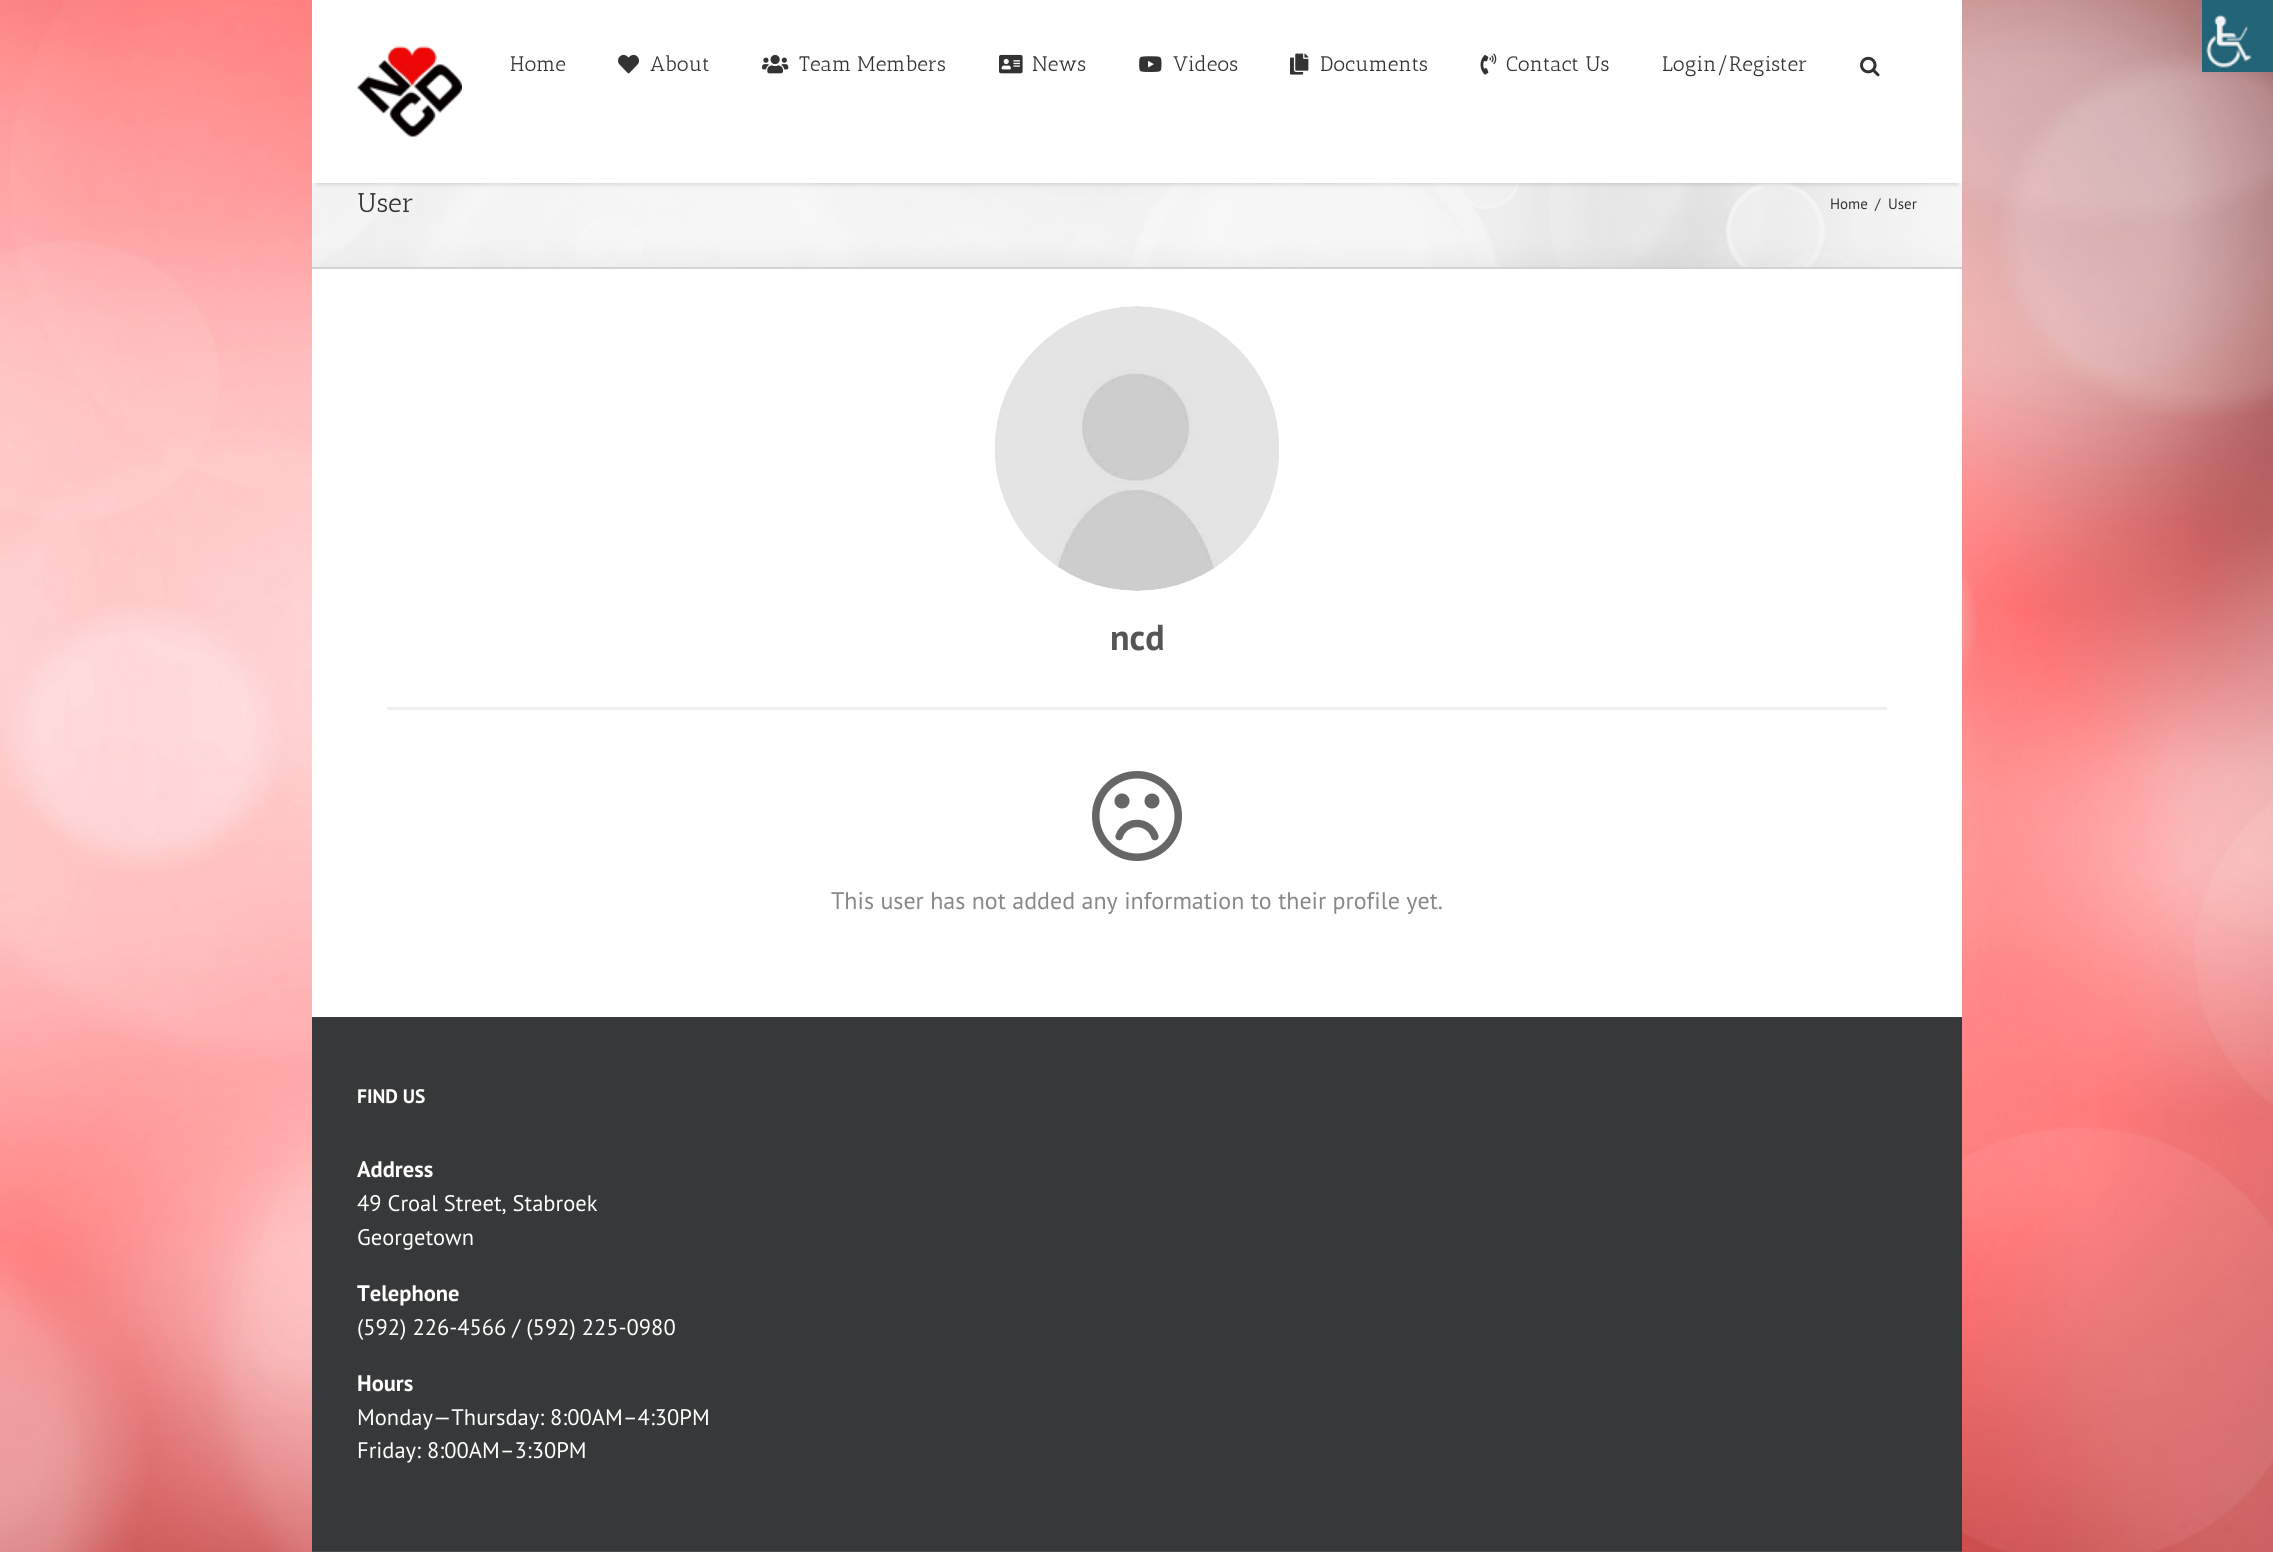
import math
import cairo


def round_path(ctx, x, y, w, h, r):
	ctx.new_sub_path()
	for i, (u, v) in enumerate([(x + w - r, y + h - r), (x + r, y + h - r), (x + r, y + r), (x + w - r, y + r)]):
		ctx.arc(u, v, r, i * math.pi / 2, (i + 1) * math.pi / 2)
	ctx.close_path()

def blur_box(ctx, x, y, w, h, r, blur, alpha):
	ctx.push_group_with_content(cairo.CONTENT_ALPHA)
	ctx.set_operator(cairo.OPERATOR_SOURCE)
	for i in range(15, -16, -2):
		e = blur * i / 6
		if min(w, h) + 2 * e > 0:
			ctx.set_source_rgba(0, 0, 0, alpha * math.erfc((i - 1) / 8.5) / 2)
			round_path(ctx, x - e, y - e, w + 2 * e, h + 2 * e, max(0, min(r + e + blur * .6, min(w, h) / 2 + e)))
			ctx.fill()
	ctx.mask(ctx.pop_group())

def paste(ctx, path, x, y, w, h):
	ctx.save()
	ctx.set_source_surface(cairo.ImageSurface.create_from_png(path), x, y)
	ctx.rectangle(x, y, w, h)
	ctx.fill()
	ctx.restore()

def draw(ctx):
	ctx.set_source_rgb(1, 1, 1)
	ctx.paint()
	paste(ctx, 'media/1.png', 0, 0, 2273, 1552)
	paste(ctx, 'media/2.png', 2202, 0, 71, 72)
	ctx.set_source_rgb(0.965, 0.965, 0.965)
	ctx.rectangle(312, 183, 1650, 84)
	ctx.fill()
	paste(ctx, 'media/11.png', 312, 183, 1650, 84)
	ctx.set_source_rgb(0, 0, 0)
	blur_box(ctx, 317, 11, 1641, 174, 0, 2, 0.12)
	ctx.set_source_rgb(1, 1, 1)
	ctx.rectangle(312, 0, 1650, 183)
	ctx.fill()
	paste(ctx, 'media/3.png', 357, 46, 105, 91)
	ctx.select_font_face('Antic Slab')
	ctx.set_font_size(21)
	ctx.set_source_rgb(0.2, 0.2, 0.2)
	ctx.move_to(510, 71)
	ctx.show_text('Home')
	paste(ctx, 'media/4.png', 618, 54, 21, 20)
	ctx.move_to(650, 71)
	ctx.show_text('About')
	paste(ctx, 'media/5.png', 762, 54, 27, 20)
	ctx.move_to(799, 71)
	ctx.show_text('Team Members')
	paste(ctx, 'media/6.png', 999, 54, 24, 20)
	ctx.move_to(1032, 71)
	ctx.show_text('News')
	paste(ctx, 'media/7.png', 1139, 56, 23, 16)
	ctx.move_to(1173, 71)
	ctx.show_text('Videos')
	paste(ctx, 'media/8.png', 1290, 53, 19, 22)
	ctx.move_to(1320, 71)
	ctx.show_text('Documents')
	paste(ctx, 'media/9.png', 1480, 53, 17, 22)
	ctx.move_to(1506, 71)
	ctx.show_text('Contact Us')
	ctx.move_to(1662, 71)
	ctx.show_text('Login/Register')
	paste(ctx, 'media/10.png', 1860, 56, 20, 21)
	ctx.set_source_rgb(0.824, 0.827, 0.831)
	ctx.rectangle(312, 267, 1650, 2)
	ctx.fill()
	ctx.set_font_size(27)
	ctx.set_source_rgb(0.2, 0.2, 0.2)
	ctx.move_to(357, 212)
	ctx.show_text('User')
	ctx.select_font_face('PT Sans')
	ctx.set_font_size(15)
	for x, y, s in [
		(1830, 209, 'Home'),
		(1875, 209, '/'),
		(1888, 209, 'User'),
	]:
		ctx.move_to(x, y)
		ctx.show_text(s)
	ctx.set_source_rgb(1, 1, 1)
	ctx.rectangle(312, 269, 1650, 748)
	ctx.fill()
	ctx.set_source_rgb(0.933, 0.933, 0.933)
	ctx.rectangle(387, 707, 1500, 3)
	ctx.fill()
	paste(ctx, 'media/12.png', 995, 306, 284, 285)
	ctx.select_font_face('PT Sans', cairo.FONT_SLANT_NORMAL, cairo.FONT_WEIGHT_BOLD)
	ctx.set_font_size(36)
	ctx.set_source_rgb(0.333, 0.333, 0.333)
	ctx.move_to(1110, 650)
	ctx.show_text('ncd')
	paste(ctx, 'media/13.png', 1092, 771, 90, 90)
	ctx.select_font_face('PT Sans')
	ctx.set_font_size(24)
	ctx.set_source_rgb(0.533, 0.533, 0.533)
	ctx.move_to(831, 909)
	ctx.show_text('This user has not added any information to their profile yet.')
	ctx.set_source_rgb(0.212, 0.22, 0.224)
	ctx.rectangle(312, 1017, 1650, 534)
	ctx.fill()
	ctx.select_font_face('PT Sans', cairo.FONT_SLANT_NORMAL, cairo.FONT_WEIGHT_BOLD)
	ctx.set_font_size(19.5)
	ctx.set_source_rgb(1, 1, 1)
	ctx.move_to(357, 1103)
	ctx.show_text('FIND US')
	ctx.set_font_size(22.5)
	ctx.move_to(357, 1177)
	ctx.show_text('Address')
	ctx.select_font_face('PT Sans')
	ctx.move_to(357, 1211)
	ctx.show_text('49 Croal Street, Stabroek')
	ctx.move_to(357, 1245)
	ctx.show_text('Georgetown')
	ctx.select_font_face('PT Sans', cairo.FONT_SLANT_NORMAL, cairo.FONT_WEIGHT_BOLD)
	ctx.move_to(357, 1301)
	ctx.show_text('Telephone')
	ctx.select_font_face('PT Sans')
	ctx.move_to(357, 1335)
	ctx.show_text('(592) 226-4566 / (592) 225-0980')
	ctx.select_font_face('PT Sans', cairo.FONT_SLANT_NORMAL, cairo.FONT_WEIGHT_BOLD)
	ctx.move_to(357, 1391)
	ctx.show_text('Hours')
	ctx.select_font_face('PT Sans')
	ctx.move_to(357, 1425)
	ctx.show_text('Monday—Thursday: 8:00AM–4:30PM')
	ctx.move_to(357, 1458)
	ctx.show_text('Friday: 8:00AM–3:30PM')
	ctx.set_source_rgb(0.294, 0.298, 0.302)
	ctx.rectangle(312, 1551, 1650, 1)
	ctx.fill()


surface = cairo.ImageSurface(cairo.FORMAT_RGB24, 2273, 1552)
ctx = cairo.Context(surface)
options = cairo.FontOptions()
options.set_hint_metrics(cairo.HINT_METRICS_OFF)
options.set_hint_style(cairo.HINT_STYLE_NONE)
ctx.set_font_options(options)
ctx.set_miter_limit(4)
draw(ctx)
surface.write_to_png('image.png')
